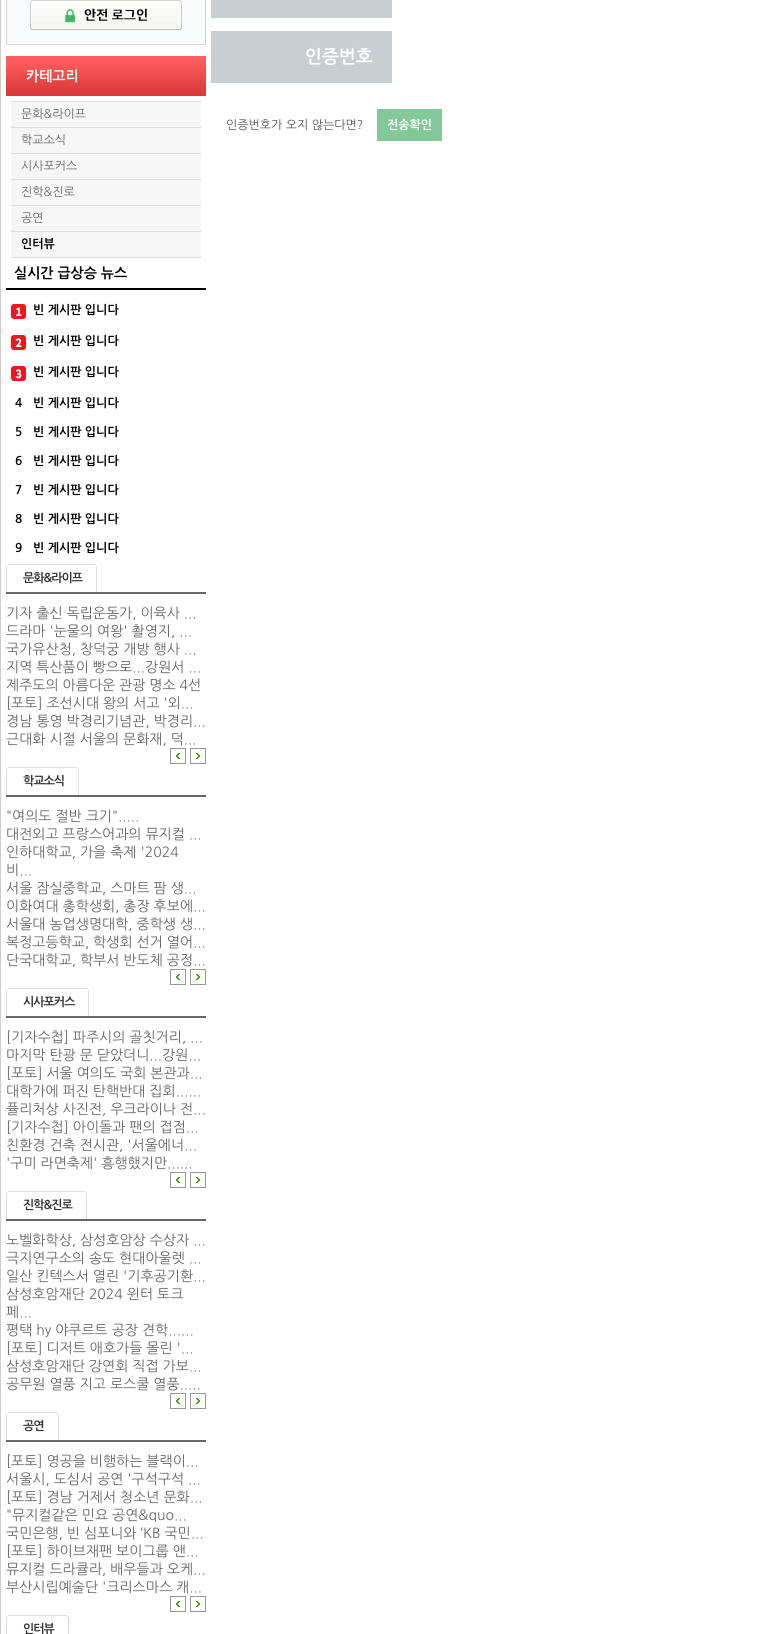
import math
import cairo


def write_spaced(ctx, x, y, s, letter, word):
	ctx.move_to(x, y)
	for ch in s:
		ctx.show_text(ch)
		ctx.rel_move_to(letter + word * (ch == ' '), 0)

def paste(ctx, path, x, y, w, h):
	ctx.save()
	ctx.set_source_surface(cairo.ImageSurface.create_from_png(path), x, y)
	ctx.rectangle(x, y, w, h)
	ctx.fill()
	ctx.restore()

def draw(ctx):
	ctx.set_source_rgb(1, 1, 1)
	ctx.paint()
	ctx.set_source_rgb(0.8, 0.8, 0.8)
	ctx.rectangle(0, 0, 1, 1634)
	ctx.fill()
	paste(ctx, 'media/1.png', 6, 0, 200, 45)
	paste(ctx, 'media/2.png', 6, 56, 200, 40)
	ctx.select_font_face('NanumGothic', cairo.FONT_SLANT_NORMAL, cairo.FONT_WEIGHT_BOLD)
	ctx.set_font_size(14)
	ctx.set_source_rgb(1, 1, 1)
	ctx.move_to(26, 81)
	ctx.show_text('카테고리')
	ctx.set_source_rgb(0.867, 0.867, 0.867)
	ctx.rectangle(11, 257, 190, 1)
	ctx.rectangle(11, 101, 190, 1)
	ctx.fill()
	ctx.set_source_rgb(0.961, 0.961, 0.961)
	ctx.rectangle(11, 102, 190, 25)
	ctx.fill()
	ctx.select_font_face('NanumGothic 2')
	ctx.set_font_size(12)
	ctx.set_source_rgb(0.4, 0.4, 0.4)
	ctx.move_to(21, 118)
	ctx.show_text('문화&라이프')
	ctx.set_source_rgb(0.867, 0.867, 0.867)
	ctx.rectangle(11, 127, 190, 1)
	ctx.fill()
	ctx.set_source_rgb(0.961, 0.961, 0.961)
	ctx.rectangle(11, 128, 190, 25)
	ctx.fill()
	ctx.set_source_rgb(0.4, 0.4, 0.4)
	ctx.move_to(21, 144)
	ctx.show_text('학교소식')
	ctx.set_source_rgb(0.867, 0.867, 0.867)
	ctx.rectangle(11, 153, 190, 1)
	ctx.fill()
	ctx.set_source_rgb(0.961, 0.961, 0.961)
	ctx.rectangle(11, 154, 190, 25)
	ctx.fill()
	ctx.set_source_rgb(0.4, 0.4, 0.4)
	ctx.move_to(21, 170)
	ctx.show_text('시사포커스')
	ctx.set_source_rgb(0.867, 0.867, 0.867)
	ctx.rectangle(11, 179, 190, 1)
	ctx.fill()
	ctx.set_source_rgb(0.961, 0.961, 0.961)
	ctx.rectangle(11, 180, 190, 25)
	ctx.fill()
	ctx.set_source_rgb(0.4, 0.4, 0.4)
	ctx.move_to(21, 196)
	ctx.show_text('진학&진로')
	ctx.set_source_rgb(0.867, 0.867, 0.867)
	ctx.rectangle(11, 205, 190, 1)
	ctx.fill()
	ctx.set_source_rgb(0.961, 0.961, 0.961)
	ctx.rectangle(11, 206, 190, 25)
	ctx.fill()
	ctx.set_source_rgb(0.4, 0.4, 0.4)
	ctx.move_to(21, 222)
	ctx.show_text('공연')
	ctx.set_source_rgb(0.867, 0.867, 0.867)
	ctx.rectangle(11, 231, 190, 1)
	ctx.fill()
	ctx.set_source_rgb(0.961, 0.961, 0.961)
	ctx.rectangle(11, 232, 190, 25)
	ctx.fill()
	ctx.select_font_face('NanumGothic 2', cairo.FONT_SLANT_NORMAL, cairo.FONT_WEIGHT_BOLD)
	ctx.set_source_rgb(0, 0, 0)
	ctx.move_to(21, 248)
	ctx.show_text('인터뷰')
	ctx.rectangle(6, 288, 200, 2)
	ctx.fill()
	ctx.select_font_face('NanumGothic', cairo.FONT_SLANT_NORMAL, cairo.FONT_WEIGHT_BOLD)
	ctx.set_font_size(14)
	ctx.move_to(14, 278)
	ctx.show_text('실시간 급상승 뉴스')
	paste(ctx, 'media/3.png', 11, 304, 15, 15)
	ctx.set_font_size(12)
	ctx.move_to(33, 314)
	ctx.show_text('빈 게시판 입니다')
	paste(ctx, 'media/4.png', 11, 335, 15, 15)
	ctx.move_to(33, 345)
	ctx.show_text('빈 게시판 입니다')
	paste(ctx, 'media/5.png', 11, 366, 15, 15)
	for x, y, s in [
		(33, 376, '빈 게시판 입니다'),
		(15, 407, '4'),
		(33, 407, '빈 게시판 입니다'),
		(15, 436, '5'),
		(33, 436, '빈 게시판 입니다'),
		(15, 465, '6'),
		(33, 465, '빈 게시판 입니다'),
		(15, 494, '7'),
		(33, 494, '빈 게시판 입니다'),
		(15, 523, '8'),
		(33, 523, '빈 게시판 입니다'),
		(15, 552, '9'),
		(33, 552, '빈 게시판 입니다'),
	]:
		ctx.move_to(x, y)
		ctx.show_text(s)
	ctx.set_source_rgb(0.4, 0.4, 0.4)
	ctx.rectangle(6, 592, 200, 2)
	ctx.fill()
	paste(ctx, 'media/6.png', 6, 564, 89, 28)
	paste(ctx, 'media/7.png', 95, 565, 2, 27)
	ctx.set_source_rgb(0.2, 0.2, 0.2)
	write_spaced(ctx, 23, 582, '문화&라이프', -1, 0)
	ctx.select_font_face('NanumGothic')
	ctx.set_font_size(14)
	ctx.set_source_rgb(0.4, 0.4, 0.4)
	for x, y, s in [
		(6, 618, '기자 출신 독립운동가, 이육사 ...'),
		(6, 636, '드라마 \'눈물의 여왕\' 촬영지, ...'),
		(6, 654, '국가유산청, 창덕궁 개방 행사 ...'),
		(6, 672, '지역 특산품이 빵으로...강원서 ...'),
		(6, 690, '제주도의 아름다운 관광 명소 4선'),
		(6, 708, '[포토] 조선시대 왕의 서고 \'외...'),
		(6, 726, '경남 통영 박경리기념관, 박경리...'),
		(6, 744, '근대화 시절 서울의 문화재, 덕...'),
	]:
		ctx.move_to(x, y)
		ctx.show_text(s)
	paste(ctx, 'media/8.png', 176, 753, 4, 6)
	ctx.rectangle(170.5, 748.5, 15, 15)
	ctx.set_source_rgb(0.6, 0.6, 0.6)
	ctx.set_line_width(1)
	ctx.stroke()
	paste(ctx, 'media/9.png', 196, 753, 4, 6)
	ctx.rectangle(190.5, 748.5, 15, 15)
	ctx.stroke()
	ctx.set_source_rgb(0.4, 0.4, 0.4)
	ctx.rectangle(6, 795, 200, 2)
	ctx.fill()
	paste(ctx, 'media/10.png', 6, 767, 71, 28)
	paste(ctx, 'media/7.png', 77, 768, 2, 27)
	ctx.select_font_face('NanumGothic', cairo.FONT_SLANT_NORMAL, cairo.FONT_WEIGHT_BOLD)
	ctx.set_font_size(12)
	ctx.set_source_rgb(0.2, 0.2, 0.2)
	write_spaced(ctx, 23, 785, '학교소식', -1, 0)
	ctx.select_font_face('NanumGothic')
	ctx.set_font_size(14)
	ctx.set_source_rgb(0.4, 0.4, 0.4)
	for x, y, s in [
		(6, 821, '"여의도 절반 크기".....'),
		(6, 839, '대전외고 프랑스어과의 뮤지컬 ...'),
		(6, 857, '인하대학교, 가을 축제 \'2024'),
		(6, 875, '비...'),
		(6, 893, '서울 잠실중학교, 스마트 팜 생...'),
		(6, 911, '이화여대 총학생회, 총장 후보에...'),
		(6, 929, '서울대 농업생명대학, 중학생 생...'),
		(6, 947, '복정고등학교, 학생회 선거 열어...'),
		(6, 965, '단국대학교, 학부서 반도체 공정...'),
	]:
		ctx.move_to(x, y)
		ctx.show_text(s)
	paste(ctx, 'media/8.png', 176, 974, 4, 6)
	ctx.rectangle(170.5, 969.5, 15, 15)
	ctx.set_source_rgb(0.6, 0.6, 0.6)
	ctx.stroke()
	paste(ctx, 'media/9.png', 196, 974, 4, 6)
	ctx.rectangle(190.5, 969.5, 15, 15)
	ctx.stroke()
	ctx.set_source_rgb(0.4, 0.4, 0.4)
	ctx.rectangle(6, 1016, 200, 2)
	ctx.fill()
	paste(ctx, 'media/11.png', 6, 988, 81, 28)
	paste(ctx, 'media/7.png', 87, 989, 2, 27)
	ctx.select_font_face('NanumGothic', cairo.FONT_SLANT_NORMAL, cairo.FONT_WEIGHT_BOLD)
	ctx.set_font_size(12)
	ctx.set_source_rgb(0.2, 0.2, 0.2)
	write_spaced(ctx, 23, 1006, '시사포커스', -1, 0)
	ctx.select_font_face('NanumGothic')
	ctx.set_font_size(14)
	ctx.set_source_rgb(0.4, 0.4, 0.4)
	for x, y, s in [
		(6, 1042, '[기자수첩] 파주시의 골칫거리, ...'),
		(6, 1060, '마지막 탄광 문 닫았더니...강원...'),
		(6, 1078, '[포토] 서울 여의도 국회 본관과...'),
		(6, 1096, '대학가에 퍼진 탄핵반대 집회......'),
		(6, 1114, '퓰리처상 사진전, 우크라이나 전...'),
		(6, 1132, '[기자수첩] 아이돌과 팬의 접점...'),
		(6, 1150, '친환경 건축 전시관, \'서울에너...'),
		(6, 1168, '\'구미 라면축제\' 흥행했지만......'),
	]:
		ctx.move_to(x, y)
		ctx.show_text(s)
	paste(ctx, 'media/8.png', 176, 1177, 4, 6)
	ctx.rectangle(170.5, 1172.5, 15, 15)
	ctx.set_source_rgb(0.6, 0.6, 0.6)
	ctx.stroke()
	paste(ctx, 'media/9.png', 196, 1177, 4, 6)
	ctx.rectangle(190.5, 1172.5, 15, 15)
	ctx.stroke()
	ctx.set_source_rgb(0.4, 0.4, 0.4)
	ctx.rectangle(6, 1219, 200, 2)
	ctx.fill()
	paste(ctx, 'media/12.png', 6, 1191, 79, 28)
	paste(ctx, 'media/13.png', 85, 1192, 2, 27)
	ctx.select_font_face('NanumGothic', cairo.FONT_SLANT_NORMAL, cairo.FONT_WEIGHT_BOLD)
	ctx.set_font_size(12)
	ctx.set_source_rgb(0.2, 0.2, 0.2)
	write_spaced(ctx, 23, 1209, '진학&진로', -1, 0)
	ctx.select_font_face('NanumGothic')
	ctx.set_font_size(14)
	ctx.set_source_rgb(0.4, 0.4, 0.4)
	for x, y, s in [
		(6, 1245, '노벨화학상, 삼성호암상 수상자 ...'),
		(6, 1263, '극지연구소의 송도 현대아울렛 ...'),
		(6, 1281, '일산 킨텍스서 열린 \'기후공기환...'),
		(6, 1299, '삼성호암재단 2024 윈터 토크'),
		(6, 1317, '페...'),
		(6, 1335, '평택 hy 야쿠르트 공장 견학......'),
		(6, 1353, '[포토] 디저트 애호가들 몰린 \'...'),
		(6, 1371, '삼성호암재단 강연회 직접 가보...'),
		(6, 1389, '공무원 열풍 지고 로스쿨 열풍.....'),
	]:
		ctx.move_to(x, y)
		ctx.show_text(s)
	paste(ctx, 'media/8.png', 176, 1398, 4, 6)
	ctx.rectangle(170.5, 1393.5, 15, 15)
	ctx.set_source_rgb(0.6, 0.6, 0.6)
	ctx.stroke()
	paste(ctx, 'media/9.png', 196, 1398, 4, 6)
	ctx.rectangle(190.5, 1393.5, 15, 15)
	ctx.stroke()
	ctx.set_source_rgb(0.4, 0.4, 0.4)
	ctx.rectangle(6, 1440, 200, 2)
	ctx.fill()
	paste(ctx, 'media/14.png', 6, 1412, 51, 28)
	paste(ctx, 'media/13.png', 57, 1413, 2, 27)
	ctx.select_font_face('NanumGothic', cairo.FONT_SLANT_NORMAL, cairo.FONT_WEIGHT_BOLD)
	ctx.set_font_size(12)
	ctx.set_source_rgb(0.2, 0.2, 0.2)
	write_spaced(ctx, 23, 1430, '공연', -1, 0)
	ctx.select_font_face('NanumGothic')
	ctx.set_font_size(14)
	ctx.set_source_rgb(0.4, 0.4, 0.4)
	for x, y, s in [
		(6, 1466, '[포토] 영공을 비행하는 블랙이...'),
		(6, 1484, '서울시, 도심서 공연 \'구석구석 ...'),
		(6, 1502, '[포토] 경남 거제서 청소년 문화...'),
		(6, 1520, '"뮤지컬같은 민요 공연&quo...'),
		(6, 1538, '국민은행, 빈 심포니와 ‘KB 국민...'),
		(6, 1556, '[포토] 하이브재팬 보이그룹 앤...'),
		(6, 1574, '뮤지컬 드라큘라, 배우들과 오케...'),
		(6, 1592, '부산시립예술단 \'크리스마스 캐...'),
	]:
		ctx.move_to(x, y)
		ctx.show_text(s)
	paste(ctx, 'media/8.png', 176, 1601, 4, 6)
	ctx.rectangle(170.5, 1596.5, 15, 15)
	ctx.set_source_rgb(0.6, 0.6, 0.6)
	ctx.stroke()
	paste(ctx, 'media/9.png', 196, 1601, 4, 6)
	ctx.rectangle(190.5, 1596.5, 15, 15)
	ctx.stroke()
	paste(ctx, 'media/15.png', 6, 1615, 61, 19)
	paste(ctx, 'media/16.png', 67, 1616, 2, 18)
	ctx.select_font_face('NanumGothic', cairo.FONT_SLANT_NORMAL, cairo.FONT_WEIGHT_BOLD)
	ctx.set_font_size(12)
	ctx.set_source_rgb(0.2, 0.2, 0.2)
	write_spaced(ctx, 23, 1633, '인터뷰', -1, 0)
	ctx.set_source_rgb(0.788, 0.808, 0.824)
	ctx.rectangle(211, 0, 181, 18)
	ctx.fill()
	ctx.rectangle(211, 31, 181, 52)
	ctx.fill()
	ctx.select_font_face('NanumGothic 2', cairo.FONT_SLANT_NORMAL, cairo.FONT_WEIGHT_BOLD)
	ctx.set_font_size(18)
	ctx.set_source_rgb(1, 1, 1)
	ctx.move_to(305, 63)
	ctx.show_text('인증번호')
	ctx.select_font_face('NanumGothic')
	ctx.set_font_size(12)
	ctx.set_source_rgb(0.333, 0.333, 0.333)
	ctx.move_to(226, 129)
	ctx.show_text('인증번호가 오지 않는다면?')
	ctx.set_source_rgb(0.514, 0.784, 0.592)
	ctx.rectangle(377, 109, 65, 32)
	ctx.fill()
	ctx.select_font_face('NanumGothic', cairo.FONT_SLANT_NORMAL, cairo.FONT_WEIGHT_BOLD)
	ctx.set_source_rgb(1, 1, 1)
	ctx.move_to(387, 129)
	ctx.show_text('전송확인')


surface = cairo.ImageSurface(cairo.FORMAT_RGB24, 758, 1634)
ctx = cairo.Context(surface)
options = cairo.FontOptions()
options.set_hint_metrics(cairo.HINT_METRICS_OFF)
options.set_hint_style(cairo.HINT_STYLE_NONE)
ctx.set_font_options(options)
ctx.set_miter_limit(4)
draw(ctx)
surface.write_to_png('image.png')
